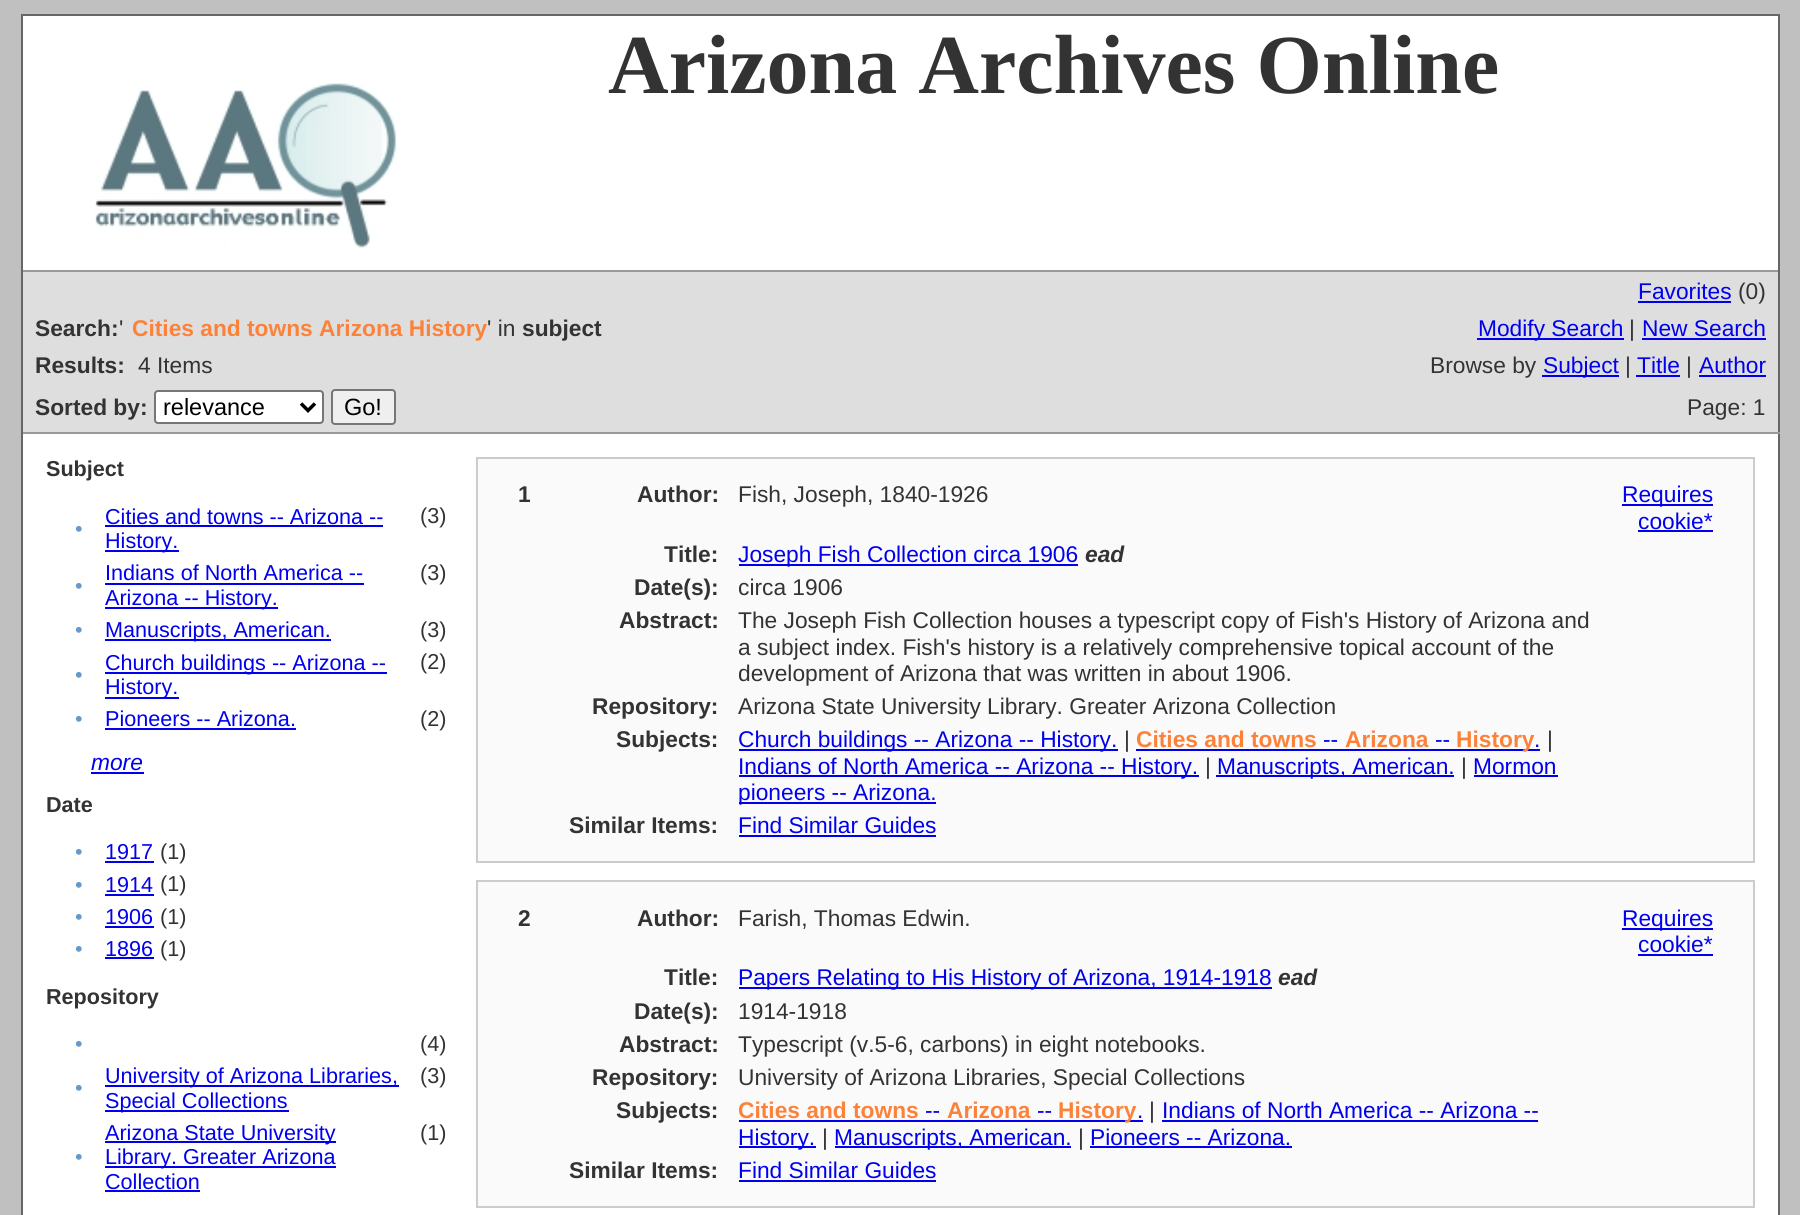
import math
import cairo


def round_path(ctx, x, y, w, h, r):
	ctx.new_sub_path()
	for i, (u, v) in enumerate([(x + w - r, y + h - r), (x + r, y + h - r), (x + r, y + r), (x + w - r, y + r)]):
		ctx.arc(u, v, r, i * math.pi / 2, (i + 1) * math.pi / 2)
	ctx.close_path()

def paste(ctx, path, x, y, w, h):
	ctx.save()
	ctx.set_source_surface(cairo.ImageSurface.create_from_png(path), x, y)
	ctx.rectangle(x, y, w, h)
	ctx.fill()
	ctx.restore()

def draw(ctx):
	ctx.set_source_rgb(0.753, 0.753, 0.753)
	ctx.paint()
	ctx.set_source_rgb(1, 1, 1)
	ctx.rectangle(23, 16, 1755, 254)
	ctx.fill()
	ctx.set_source_rgb(0.4, 0.4, 0.4)
	ctx.rectangle(21, 14, 1759, 2)
	ctx.rectangle(1778, 14, 2, 256)
	ctx.rectangle(21, 14, 2, 256)
	ctx.fill()
	ctx.select_font_face('Liberation Serif', cairo.FONT_SLANT_NORMAL, cairo.FONT_WEIGHT_BOLD)
	ctx.set_font_size(84)
	ctx.set_source_rgb(0.2, 0.2, 0.2)
	ctx.move_to(608, 93)
	ctx.show_text('Arizona Archives Online')
	paste(ctx, 'media/1.png', 94, 83, 303, 165)
	ctx.set_source_rgb(0.871, 0.871, 0.875)
	ctx.rectangle(23, 272, 1755, 160)
	ctx.fill()
	ctx.set_source_rgb(0.6, 0.6, 0.6)
	ctx.rectangle(21, 270, 1759, 2)
	ctx.fill()
	ctx.set_source_rgb(0.4, 0.4, 0.4)
	ctx.rectangle(1778, 270, 2, 945)
	ctx.fill()
	ctx.set_source_rgb(0.6, 0.6, 0.6)
	ctx.rectangle(21, 432, 1759, 2)
	ctx.fill()
	ctx.set_source_rgb(0.4, 0.4, 0.4)
	ctx.rectangle(21, 270, 2, 945)
	ctx.fill()
	ctx.select_font_face('Liberation Sans')
	ctx.set_font_size(22.75)
	ctx.set_source_rgb(0, 0, 0.933)
	ctx.move_to(1638, 299)
	ctx.show_text('Favorites')
	ctx.rectangle(1638, 301, 93, 2)
	ctx.fill()
	ctx.set_source_rgb(0.2, 0.2, 0.2)
	ctx.move_to(1738, 299)
	ctx.show_text('(0)')
	ctx.select_font_face('Liberation Sans', cairo.FONT_SLANT_NORMAL, cairo.FONT_WEIGHT_BOLD)
	ctx.move_to(35, 336)
	ctx.show_text('Search:')
	ctx.select_font_face('Liberation Sans')
	ctx.move_to(119, 336)
	ctx.show_text('\'')
	ctx.select_font_face('Liberation Sans', cairo.FONT_SLANT_NORMAL, cairo.FONT_WEIGHT_BOLD)
	ctx.set_source_rgb(0.992, 0.51, 0.224)
	ctx.move_to(132, 336)
	ctx.show_text('Cities and towns Arizona History')
	ctx.select_font_face('Liberation Sans')
	ctx.set_source_rgb(0.2, 0.2, 0.2)
	ctx.move_to(487, 336)
	ctx.show_text('\' in')
	ctx.select_font_face('Liberation Sans', cairo.FONT_SLANT_NORMAL, cairo.FONT_WEIGHT_BOLD)
	ctx.move_to(522, 336)
	ctx.show_text('subject')
	ctx.set_source_rgb(0, 0, 0.933)
	ctx.rectangle(1477, 338, 147, 2)
	ctx.fill()
	ctx.select_font_face('Liberation Sans')
	ctx.move_to(1478, 336)
	ctx.show_text('Modify Search')
	ctx.set_source_rgb(0.2, 0.2, 0.2)
	ctx.move_to(1629, 336)
	ctx.show_text('|')
	ctx.set_source_rgb(0, 0, 0.933)
	ctx.move_to(1642, 336)
	ctx.show_text('New Search')
	ctx.rectangle(1642, 338, 124, 2)
	ctx.fill()
	ctx.select_font_face('Liberation Sans', cairo.FONT_SLANT_NORMAL, cairo.FONT_WEIGHT_BOLD)
	ctx.set_source_rgb(0.2, 0.2, 0.2)
	ctx.move_to(35, 373)
	ctx.show_text('Results:')
	ctx.select_font_face('Liberation Sans')
	ctx.move_to(138, 373)
	ctx.show_text('4 Items')
	ctx.move_to(1430, 373)
	ctx.show_text('Browse by')
	ctx.set_source_rgb(0, 0, 0.933)
	ctx.rectangle(1542, 375, 77, 2)
	ctx.fill()
	ctx.move_to(1543, 373)
	ctx.show_text('Subject')
	ctx.set_source_rgb(0.2, 0.2, 0.2)
	ctx.move_to(1625, 373)
	ctx.show_text('|')
	ctx.set_source_rgb(0, 0, 0.933)
	ctx.move_to(1637, 373)
	ctx.show_text('Title')
	ctx.rectangle(1636, 375, 44, 2)
	ctx.fill()
	ctx.set_source_rgb(0.2, 0.2, 0.2)
	ctx.move_to(1686, 373)
	ctx.show_text('|')
	ctx.set_source_rgb(0, 0, 0.933)
	ctx.move_to(1699, 373)
	ctx.show_text('Author')
	ctx.rectangle(1699, 375, 67, 2)
	ctx.fill()
	ctx.select_font_face('Liberation Sans', cairo.FONT_SLANT_NORMAL, cairo.FONT_WEIGHT_BOLD)
	ctx.set_source_rgb(0.2, 0.2, 0.2)
	ctx.move_to(35, 415)
	ctx.show_text('Sorted by:')
	ctx.set_source_rgb(1, 1, 1)
	round_path(ctx, 155, 391, 168, 32, 3)
	ctx.fill_preserve()
	ctx.set_source_rgb(0.463, 0.463, 0.463)
	ctx.stroke()
	ctx.new_path()
	ctx.move_to(301, 403.5)
	ctx.line_to(308, 410.5)
	ctx.line_to(315, 403.5)
	ctx.set_source_rgb(0, 0, 0)
	ctx.set_line_width(3.5)
	ctx.stroke()
	ctx.select_font_face('Liberation Sans')
	ctx.set_font_size(23.5)
	ctx.move_to(163, 415)
	ctx.show_text('relevance')
	ctx.set_source_rgb(0.937, 0.937, 0.937)
	round_path(ctx, 332, 390, 63, 34, 3)
	ctx.fill_preserve()
	ctx.set_source_rgb(0.463, 0.463, 0.463)
	ctx.set_line_width(2)
	ctx.stroke()
	ctx.set_source_rgb(0, 0, 0)
	ctx.move_to(344, 415)
	ctx.show_text('Go!')
	ctx.set_font_size(22.75)
	ctx.set_source_rgb(0.2, 0.2, 0.2)
	ctx.move_to(1687, 415)
	ctx.show_text('Page: 1')
	ctx.set_source_rgb(1, 1, 1)
	ctx.rectangle(23, 434, 1755, 781)
	ctx.fill()
	ctx.select_font_face('Liberation Sans', cairo.FONT_SLANT_NORMAL, cairo.FONT_WEIGHT_BOLD)
	ctx.set_font_size(21.6)
	ctx.set_source_rgb(0.2, 0.2, 0.2)
	ctx.move_to(46, 476)
	ctx.show_text('Subject')
	ctx.select_font_face('Liberation Sans')
	ctx.set_source_rgb(0.4, 0.6, 0.8)
	ctx.move_to(75, 536)
	ctx.show_text('•')
	ctx.set_source_rgb(0, 0, 0.933)
	ctx.move_to(105, 524)
	ctx.show_text('Cities and towns -- Arizona --')
	ctx.rectangle(105, 525, 278, 2)
	ctx.fill()
	ctx.rectangle(105, 550, 74, 2)
	ctx.fill()
	ctx.move_to(105, 548)
	ctx.show_text('History.')
	ctx.set_source_rgb(0.2, 0.2, 0.2)
	ctx.move_to(420, 523)
	ctx.show_text('(3)')
	ctx.set_source_rgb(0.4, 0.6, 0.8)
	ctx.move_to(75, 593)
	ctx.show_text('•')
	ctx.set_source_rgb(0, 0, 0.933)
	ctx.move_to(105, 580)
	ctx.show_text('Indians of North America --')
	ctx.rectangle(105, 583, 259, 2)
	ctx.fill()
	ctx.rectangle(105, 607, 173, 2)
	ctx.fill()
	ctx.move_to(105, 605)
	ctx.show_text('Arizona -- History.')
	ctx.set_source_rgb(0.2, 0.2, 0.2)
	ctx.move_to(420, 580)
	ctx.show_text('(3)')
	ctx.set_source_rgb(0.4, 0.6, 0.8)
	ctx.move_to(75, 637)
	ctx.show_text('•')
	ctx.set_source_rgb(0, 0, 0.933)
	ctx.rectangle(105, 639, 226, 2)
	ctx.fill()
	ctx.move_to(105, 637)
	ctx.show_text('Manuscripts, American.')
	ctx.set_source_rgb(0.2, 0.2, 0.2)
	ctx.move_to(420, 637)
	ctx.show_text('(3)')
	ctx.set_source_rgb(0.4, 0.6, 0.8)
	ctx.move_to(75, 682)
	ctx.show_text('•')
	ctx.set_source_rgb(0, 0, 0.933)
	ctx.rectangle(105, 672, 282, 2)
	ctx.fill()
	ctx.move_to(105, 670)
	ctx.show_text('Church buildings -- Arizona --')
	ctx.rectangle(105, 697, 74, 2)
	ctx.fill()
	ctx.move_to(105, 694)
	ctx.show_text('History.')
	ctx.set_source_rgb(0.2, 0.2, 0.2)
	ctx.move_to(420, 669)
	ctx.show_text('(2)')
	ctx.set_source_rgb(0.4, 0.6, 0.8)
	ctx.move_to(75, 726)
	ctx.show_text('•')
	ctx.set_source_rgb(0, 0, 0.933)
	ctx.move_to(105, 726)
	ctx.show_text('Pioneers -- Arizona.')
	ctx.rectangle(105, 728, 191, 2)
	ctx.fill()
	ctx.set_source_rgb(0.2, 0.2, 0.2)
	ctx.move_to(420, 726)
	ctx.show_text('(2)')
	ctx.select_font_face('Liberation Sans', cairo.FONT_SLANT_ITALIC)
	ctx.set_font_size(22.75)
	ctx.set_source_rgb(0, 0, 0.933)
	ctx.move_to(91, 770)
	ctx.show_text('more')
	ctx.rectangle(91, 772, 53, 2)
	ctx.fill()
	ctx.select_font_face('Liberation Sans', cairo.FONT_SLANT_NORMAL, cairo.FONT_WEIGHT_BOLD)
	ctx.set_font_size(21.6)
	ctx.set_source_rgb(0.2, 0.2, 0.2)
	ctx.move_to(46, 812)
	ctx.show_text('Date')
	ctx.select_font_face('Liberation Sans')
	ctx.set_source_rgb(0.4, 0.6, 0.8)
	ctx.move_to(75, 859)
	ctx.show_text('•')
	ctx.set_source_rgb(0, 0, 0.933)
	ctx.move_to(105, 859)
	ctx.show_text('1917')
	ctx.rectangle(105, 861, 49, 2)
	ctx.fill()
	ctx.set_source_rgb(0.2, 0.2, 0.2)
	ctx.move_to(160, 859)
	ctx.show_text('(1)')
	ctx.set_source_rgb(0.4, 0.6, 0.8)
	ctx.move_to(75, 892)
	ctx.show_text('•')
	ctx.set_source_rgb(0, 0, 0.933)
	ctx.move_to(105, 892)
	ctx.show_text('1914')
	ctx.rectangle(105, 894, 49, 2)
	ctx.fill()
	ctx.set_source_rgb(0.2, 0.2, 0.2)
	ctx.move_to(160, 891)
	ctx.show_text('(1)')
	ctx.set_source_rgb(0.4, 0.6, 0.8)
	ctx.move_to(75, 924)
	ctx.show_text('•')
	ctx.set_source_rgb(0, 0, 0.933)
	ctx.move_to(105, 924)
	ctx.show_text('1906')
	ctx.rectangle(105, 926, 49, 2)
	ctx.fill()
	ctx.set_source_rgb(0.2, 0.2, 0.2)
	ctx.move_to(160, 924)
	ctx.show_text('(1)')
	ctx.set_source_rgb(0.4, 0.6, 0.8)
	ctx.move_to(75, 956)
	ctx.show_text('•')
	ctx.set_source_rgb(0, 0, 0.933)
	ctx.move_to(105, 956)
	ctx.show_text('1896')
	ctx.rectangle(105, 957, 49, 2)
	ctx.fill()
	ctx.set_source_rgb(0.2, 0.2, 0.2)
	ctx.move_to(160, 956)
	ctx.show_text('(1)')
	ctx.select_font_face('Liberation Sans', cairo.FONT_SLANT_NORMAL, cairo.FONT_WEIGHT_BOLD)
	ctx.move_to(46, 1004)
	ctx.show_text('Repository')
	ctx.select_font_face('Liberation Sans')
	ctx.set_source_rgb(0.4, 0.6, 0.8)
	ctx.move_to(75, 1051)
	ctx.show_text('•')
	ctx.set_source_rgb(0.2, 0.2, 0.2)
	ctx.move_to(420, 1051)
	ctx.show_text('(4)')
	ctx.set_source_rgb(0.4, 0.6, 0.8)
	ctx.move_to(75, 1095)
	ctx.show_text('•')
	ctx.set_source_rgb(0, 0, 0.933)
	ctx.rectangle(105, 1085, 294, 2)
	ctx.fill()
	ctx.move_to(105, 1083)
	ctx.show_text('University of Arizona Libraries,')
	ctx.rectangle(105, 1110, 184, 2)
	ctx.fill()
	ctx.move_to(105, 1108)
	ctx.show_text('Special Collections')
	ctx.set_source_rgb(0.2, 0.2, 0.2)
	ctx.move_to(420, 1083)
	ctx.show_text('(3)')
	ctx.set_source_rgb(0, 0, 0.933)
	ctx.rectangle(105, 1141, 231, 2)
	ctx.fill()
	ctx.move_to(105, 1140)
	ctx.show_text('Arizona State University')
	ctx.rectangle(105, 1166, 231, 2)
	ctx.fill()
	ctx.move_to(105, 1164)
	ctx.show_text('Library. Greater Arizona')
	ctx.move_to(105, 1189)
	ctx.show_text('Collection')
	ctx.rectangle(105, 1190, 95, 2)
	ctx.fill()
	ctx.set_source_rgb(0.2, 0.2, 0.2)
	ctx.move_to(420, 1140)
	ctx.show_text('(1)')
	ctx.set_source_rgb(0.4, 0.6, 0.8)
	ctx.move_to(75, 1164)
	ctx.show_text('•')
	ctx.set_source_rgb(0.98, 0.98, 0.984)
	ctx.rectangle(477, 458, 1277, 404)
	ctx.fill_preserve()
	ctx.set_source_rgb(0.8, 0.8, 0.8)
	ctx.stroke()
	ctx.select_font_face('Liberation Sans', cairo.FONT_SLANT_NORMAL, cairo.FONT_WEIGHT_BOLD)
	ctx.set_font_size(22.75)
	ctx.set_source_rgb(0.2, 0.2, 0.2)
	ctx.move_to(518, 502)
	ctx.show_text('1')
	ctx.move_to(637, 502)
	ctx.show_text('Author:')
	ctx.select_font_face('Liberation Sans')
	ctx.move_to(738, 502)
	ctx.show_text('Fish, Joseph, 1840-1926')
	ctx.set_source_rgb(0, 0, 0.933)
	ctx.rectangle(1622, 504, 91, 2)
	ctx.fill()
	ctx.move_to(1622, 502)
	ctx.show_text('Requires')
	ctx.move_to(1638, 529)
	ctx.show_text('cookie*')
	ctx.rectangle(1638, 530, 75, 2)
	ctx.fill()
	ctx.select_font_face('Liberation Sans', cairo.FONT_SLANT_NORMAL, cairo.FONT_WEIGHT_BOLD)
	ctx.set_source_rgb(0.2, 0.2, 0.2)
	ctx.move_to(664, 562)
	ctx.show_text('Title:')
	ctx.set_source_rgb(0, 0, 0.933)
	ctx.rectangle(739, 564, 339, 2)
	ctx.fill()
	ctx.select_font_face('Liberation Sans')
	ctx.move_to(738, 562)
	ctx.show_text('Joseph Fish Collection circa 1906')
	ctx.select_font_face('Liberation Sans', cairo.FONT_SLANT_ITALIC, cairo.FONT_WEIGHT_BOLD)
	ctx.set_source_rgb(0.2, 0.2, 0.2)
	ctx.move_to(1085, 562)
	ctx.show_text('ead')
	ctx.select_font_face('Liberation Sans', cairo.FONT_SLANT_NORMAL, cairo.FONT_WEIGHT_BOLD)
	ctx.move_to(634, 595)
	ctx.show_text('Date(s):')
	ctx.select_font_face('Liberation Sans')
	ctx.move_to(738, 595)
	ctx.show_text('circa 1906')
	ctx.select_font_face('Liberation Sans', cairo.FONT_SLANT_NORMAL, cairo.FONT_WEIGHT_BOLD)
	ctx.move_to(619, 628)
	ctx.show_text('Abstract:')
	ctx.select_font_face('Liberation Sans')
	for x, y, s in [
		(738, 628, 'The Joseph Fish Collection houses a typescript copy of Fish\'s History of Arizona and'),
		(738, 655, 'a subject index. Fish\'s history is a relatively comprehensive topical account of the'),
		(738, 681, 'development of Arizona that was written in about 1906.'),
	]:
		ctx.move_to(x, y)
		ctx.show_text(s)
	ctx.select_font_face('Liberation Sans', cairo.FONT_SLANT_NORMAL, cairo.FONT_WEIGHT_BOLD)
	ctx.move_to(592, 714)
	ctx.show_text('Repository:')
	ctx.select_font_face('Liberation Sans')
	ctx.move_to(738, 714)
	ctx.show_text('Arizona State University Library. Greater Arizona Collection')
	ctx.select_font_face('Liberation Sans', cairo.FONT_SLANT_NORMAL, cairo.FONT_WEIGHT_BOLD)
	ctx.move_to(616, 747)
	ctx.show_text('Subjects:')
	ctx.set_source_rgb(0, 0, 0.933)
	ctx.rectangle(739, 749, 379, 2)
	ctx.fill()
	ctx.select_font_face('Liberation Sans')
	ctx.move_to(738, 747)
	ctx.show_text('Church buildings -- Arizona -- History.')
	ctx.set_source_rgb(0.2, 0.2, 0.2)
	ctx.move_to(1124, 747)
	ctx.show_text('|')
	ctx.select_font_face('Liberation Sans', cairo.FONT_SLANT_NORMAL, cairo.FONT_WEIGHT_BOLD)
	ctx.set_source_rgb(0.992, 0.51, 0.224)
	ctx.move_to(1136, 747)
	ctx.show_text('Cities and towns')
	ctx.select_font_face('Liberation Sans')
	ctx.set_source_rgb(0, 0, 0.933)
	ctx.move_to(1323, 747)
	ctx.show_text('--')
	ctx.select_font_face('Liberation Sans', cairo.FONT_SLANT_NORMAL, cairo.FONT_WEIGHT_BOLD)
	ctx.set_source_rgb(0.992, 0.51, 0.224)
	ctx.move_to(1345, 747)
	ctx.show_text('Arizona')
	ctx.select_font_face('Liberation Sans')
	ctx.set_source_rgb(0, 0, 0.933)
	ctx.move_to(1435, 747)
	ctx.show_text('--')
	ctx.rectangle(1136, 749, 404, 2)
	ctx.fill()
	ctx.select_font_face('Liberation Sans', cairo.FONT_SLANT_NORMAL, cairo.FONT_WEIGHT_BOLD)
	ctx.set_source_rgb(0.992, 0.51, 0.224)
	ctx.move_to(1456, 747)
	ctx.show_text('History')
	ctx.select_font_face('Liberation Sans')
	ctx.set_source_rgb(0.2, 0.2, 0.2)
	ctx.move_to(1547, 747)
	ctx.show_text('|')
	ctx.set_source_rgb(0, 0, 0.933)
	ctx.move_to(1534, 747)
	ctx.show_text('.')
	ctx.rectangle(739, 775, 460, 2)
	ctx.fill()
	ctx.move_to(738, 774)
	ctx.show_text('Indians of North America -- Arizona -- History.')
	ctx.set_source_rgb(0.2, 0.2, 0.2)
	ctx.move_to(1205, 774)
	ctx.show_text('|')
	ctx.set_source_rgb(0, 0, 0.933)
	ctx.rectangle(1216, 775, 238, 2)
	ctx.fill()
	ctx.move_to(1217, 774)
	ctx.show_text('Manuscripts, American.')
	ctx.set_source_rgb(0.2, 0.2, 0.2)
	ctx.move_to(1461, 774)
	ctx.show_text('|')
	ctx.set_source_rgb(0, 0, 0.933)
	ctx.move_to(1473, 774)
	ctx.show_text('Mormon')
	ctx.rectangle(1474, 775, 84, 2)
	ctx.fill()
	ctx.rectangle(739, 802, 197, 2)
	ctx.fill()
	ctx.move_to(738, 800)
	ctx.show_text('pioneers -- Arizona.')
	ctx.select_font_face('Liberation Sans', cairo.FONT_SLANT_NORMAL, cairo.FONT_WEIGHT_BOLD)
	ctx.set_source_rgb(0.2, 0.2, 0.2)
	ctx.move_to(569, 833)
	ctx.show_text('Similar Items:')
	ctx.select_font_face('Liberation Sans')
	ctx.set_source_rgb(0, 0, 0.933)
	ctx.move_to(738, 833)
	ctx.show_text('Find Similar Guides')
	ctx.rectangle(739, 835, 197, 2)
	ctx.fill()
	ctx.set_source_rgb(0.98, 0.98, 0.984)
	ctx.rectangle(477, 881, 1277, 326)
	ctx.fill_preserve()
	ctx.set_source_rgb(0.8, 0.8, 0.8)
	ctx.stroke()
	ctx.select_font_face('Liberation Sans', cairo.FONT_SLANT_NORMAL, cairo.FONT_WEIGHT_BOLD)
	ctx.set_source_rgb(0.2, 0.2, 0.2)
	ctx.move_to(518, 926)
	ctx.show_text('2')
	ctx.move_to(637, 926)
	ctx.show_text('Author:')
	ctx.select_font_face('Liberation Sans')
	ctx.move_to(738, 926)
	ctx.show_text('Farish, Thomas Edwin.')
	ctx.set_source_rgb(0, 0, 0.933)
	ctx.rectangle(1622, 928, 91, 2)
	ctx.fill()
	ctx.move_to(1622, 926)
	ctx.show_text('Requires')
	ctx.move_to(1638, 952)
	ctx.show_text('cookie*')
	ctx.rectangle(1638, 954, 75, 2)
	ctx.fill()
	ctx.select_font_face('Liberation Sans', cairo.FONT_SLANT_NORMAL, cairo.FONT_WEIGHT_BOLD)
	ctx.set_source_rgb(0.2, 0.2, 0.2)
	ctx.move_to(664, 985)
	ctx.show_text('Title:')
	ctx.set_source_rgb(0, 0, 0.933)
	ctx.rectangle(739, 987, 533, 2)
	ctx.fill()
	ctx.select_font_face('Liberation Sans')
	ctx.move_to(738, 985)
	ctx.show_text('Papers Relating to His History of Arizona, 1914-1918')
	ctx.select_font_face('Liberation Sans', cairo.FONT_SLANT_ITALIC, cairo.FONT_WEIGHT_BOLD)
	ctx.set_source_rgb(0.2, 0.2, 0.2)
	ctx.move_to(1278, 985)
	ctx.show_text('ead')
	ctx.select_font_face('Liberation Sans', cairo.FONT_SLANT_NORMAL, cairo.FONT_WEIGHT_BOLD)
	ctx.move_to(634, 1019)
	ctx.show_text('Date(s):')
	ctx.select_font_face('Liberation Sans')
	ctx.move_to(738, 1019)
	ctx.show_text('1914-1918')
	ctx.select_font_face('Liberation Sans', cairo.FONT_SLANT_NORMAL, cairo.FONT_WEIGHT_BOLD)
	ctx.move_to(619, 1052)
	ctx.show_text('Abstract:')
	ctx.select_font_face('Liberation Sans')
	ctx.move_to(738, 1052)
	ctx.show_text('Typescript (v.5-6, carbons) in eight notebooks.')
	ctx.select_font_face('Liberation Sans', cairo.FONT_SLANT_NORMAL, cairo.FONT_WEIGHT_BOLD)
	ctx.move_to(592, 1085)
	ctx.show_text('Repository:')
	ctx.select_font_face('Liberation Sans')
	ctx.move_to(738, 1085)
	ctx.show_text('University of Arizona Libraries, Special Collections')
	ctx.select_font_face('Liberation Sans', cairo.FONT_SLANT_NORMAL, cairo.FONT_WEIGHT_BOLD)
	ctx.move_to(616, 1118)
	ctx.show_text('Subjects:')
	ctx.set_source_rgb(0.992, 0.51, 0.224)
	ctx.move_to(738, 1118)
	ctx.show_text('Cities and towns')
	ctx.select_font_face('Liberation Sans')
	ctx.set_source_rgb(0, 0, 0.933)
	ctx.move_to(925, 1118)
	ctx.show_text('--')
	ctx.select_font_face('Liberation Sans', cairo.FONT_SLANT_NORMAL, cairo.FONT_WEIGHT_BOLD)
	ctx.set_source_rgb(0.992, 0.51, 0.224)
	ctx.move_to(947, 1118)
	ctx.show_text('Arizona')
	ctx.select_font_face('Liberation Sans')
	ctx.set_source_rgb(0, 0, 0.933)
	ctx.move_to(1037, 1118)
	ctx.show_text('--')
	ctx.rectangle(739, 1120, 397, 2)
	ctx.fill()
	ctx.select_font_face('Liberation Sans', cairo.FONT_SLANT_NORMAL, cairo.FONT_WEIGHT_BOLD)
	ctx.set_source_rgb(0.992, 0.51, 0.224)
	ctx.move_to(1058, 1118)
	ctx.show_text('History')
	ctx.select_font_face('Liberation Sans')
	ctx.set_source_rgb(0.2, 0.2, 0.2)
	ctx.move_to(1149, 1118)
	ctx.show_text('|')
	ctx.set_source_rgb(0, 0, 0.933)
	ctx.move_to(1162, 1118)
	ctx.show_text('Indians of North America -- Arizona --')
	ctx.rectangle(1162, 1120, 376, 2)
	ctx.fill()
	ctx.move_to(1137, 1118)
	ctx.show_text('.')
	ctx.rectangle(1136, 1120, 7, 2)
	ctx.fill()
	ctx.rectangle(739, 1146, 77, 2)
	ctx.fill()
	ctx.move_to(738, 1145)
	ctx.show_text('History.')
	ctx.set_source_rgb(0.2, 0.2, 0.2)
	ctx.move_to(822, 1145)
	ctx.show_text('|')
	ctx.set_source_rgb(0, 0, 0.933)
	ctx.rectangle(835, 1146, 236, 2)
	ctx.fill()
	ctx.move_to(834, 1145)
	ctx.show_text('Manuscripts, American.')
	ctx.set_source_rgb(0.2, 0.2, 0.2)
	ctx.move_to(1078, 1145)
	ctx.show_text('|')
	ctx.set_source_rgb(0, 0, 0.933)
	ctx.move_to(1090, 1145)
	ctx.show_text('Pioneers -- Arizona.')
	ctx.rectangle(1090, 1146, 202, 2)
	ctx.fill()
	ctx.select_font_face('Liberation Sans', cairo.FONT_SLANT_NORMAL, cairo.FONT_WEIGHT_BOLD)
	ctx.set_source_rgb(0.2, 0.2, 0.2)
	ctx.move_to(569, 1178)
	ctx.show_text('Similar Items:')
	ctx.select_font_face('Liberation Sans')
	ctx.set_source_rgb(0, 0, 0.933)
	ctx.move_to(738, 1178)
	ctx.show_text('Find Similar Guides')
	ctx.rectangle(739, 1180, 197, 2)
	ctx.fill()


surface = cairo.ImageSurface(cairo.FORMAT_RGB24, 1800, 1215)
ctx = cairo.Context(surface)
options = cairo.FontOptions()
options.set_hint_metrics(cairo.HINT_METRICS_OFF)
options.set_hint_style(cairo.HINT_STYLE_NONE)
ctx.set_font_options(options)
ctx.set_miter_limit(4)
draw(ctx)
surface.write_to_png('image.png')
